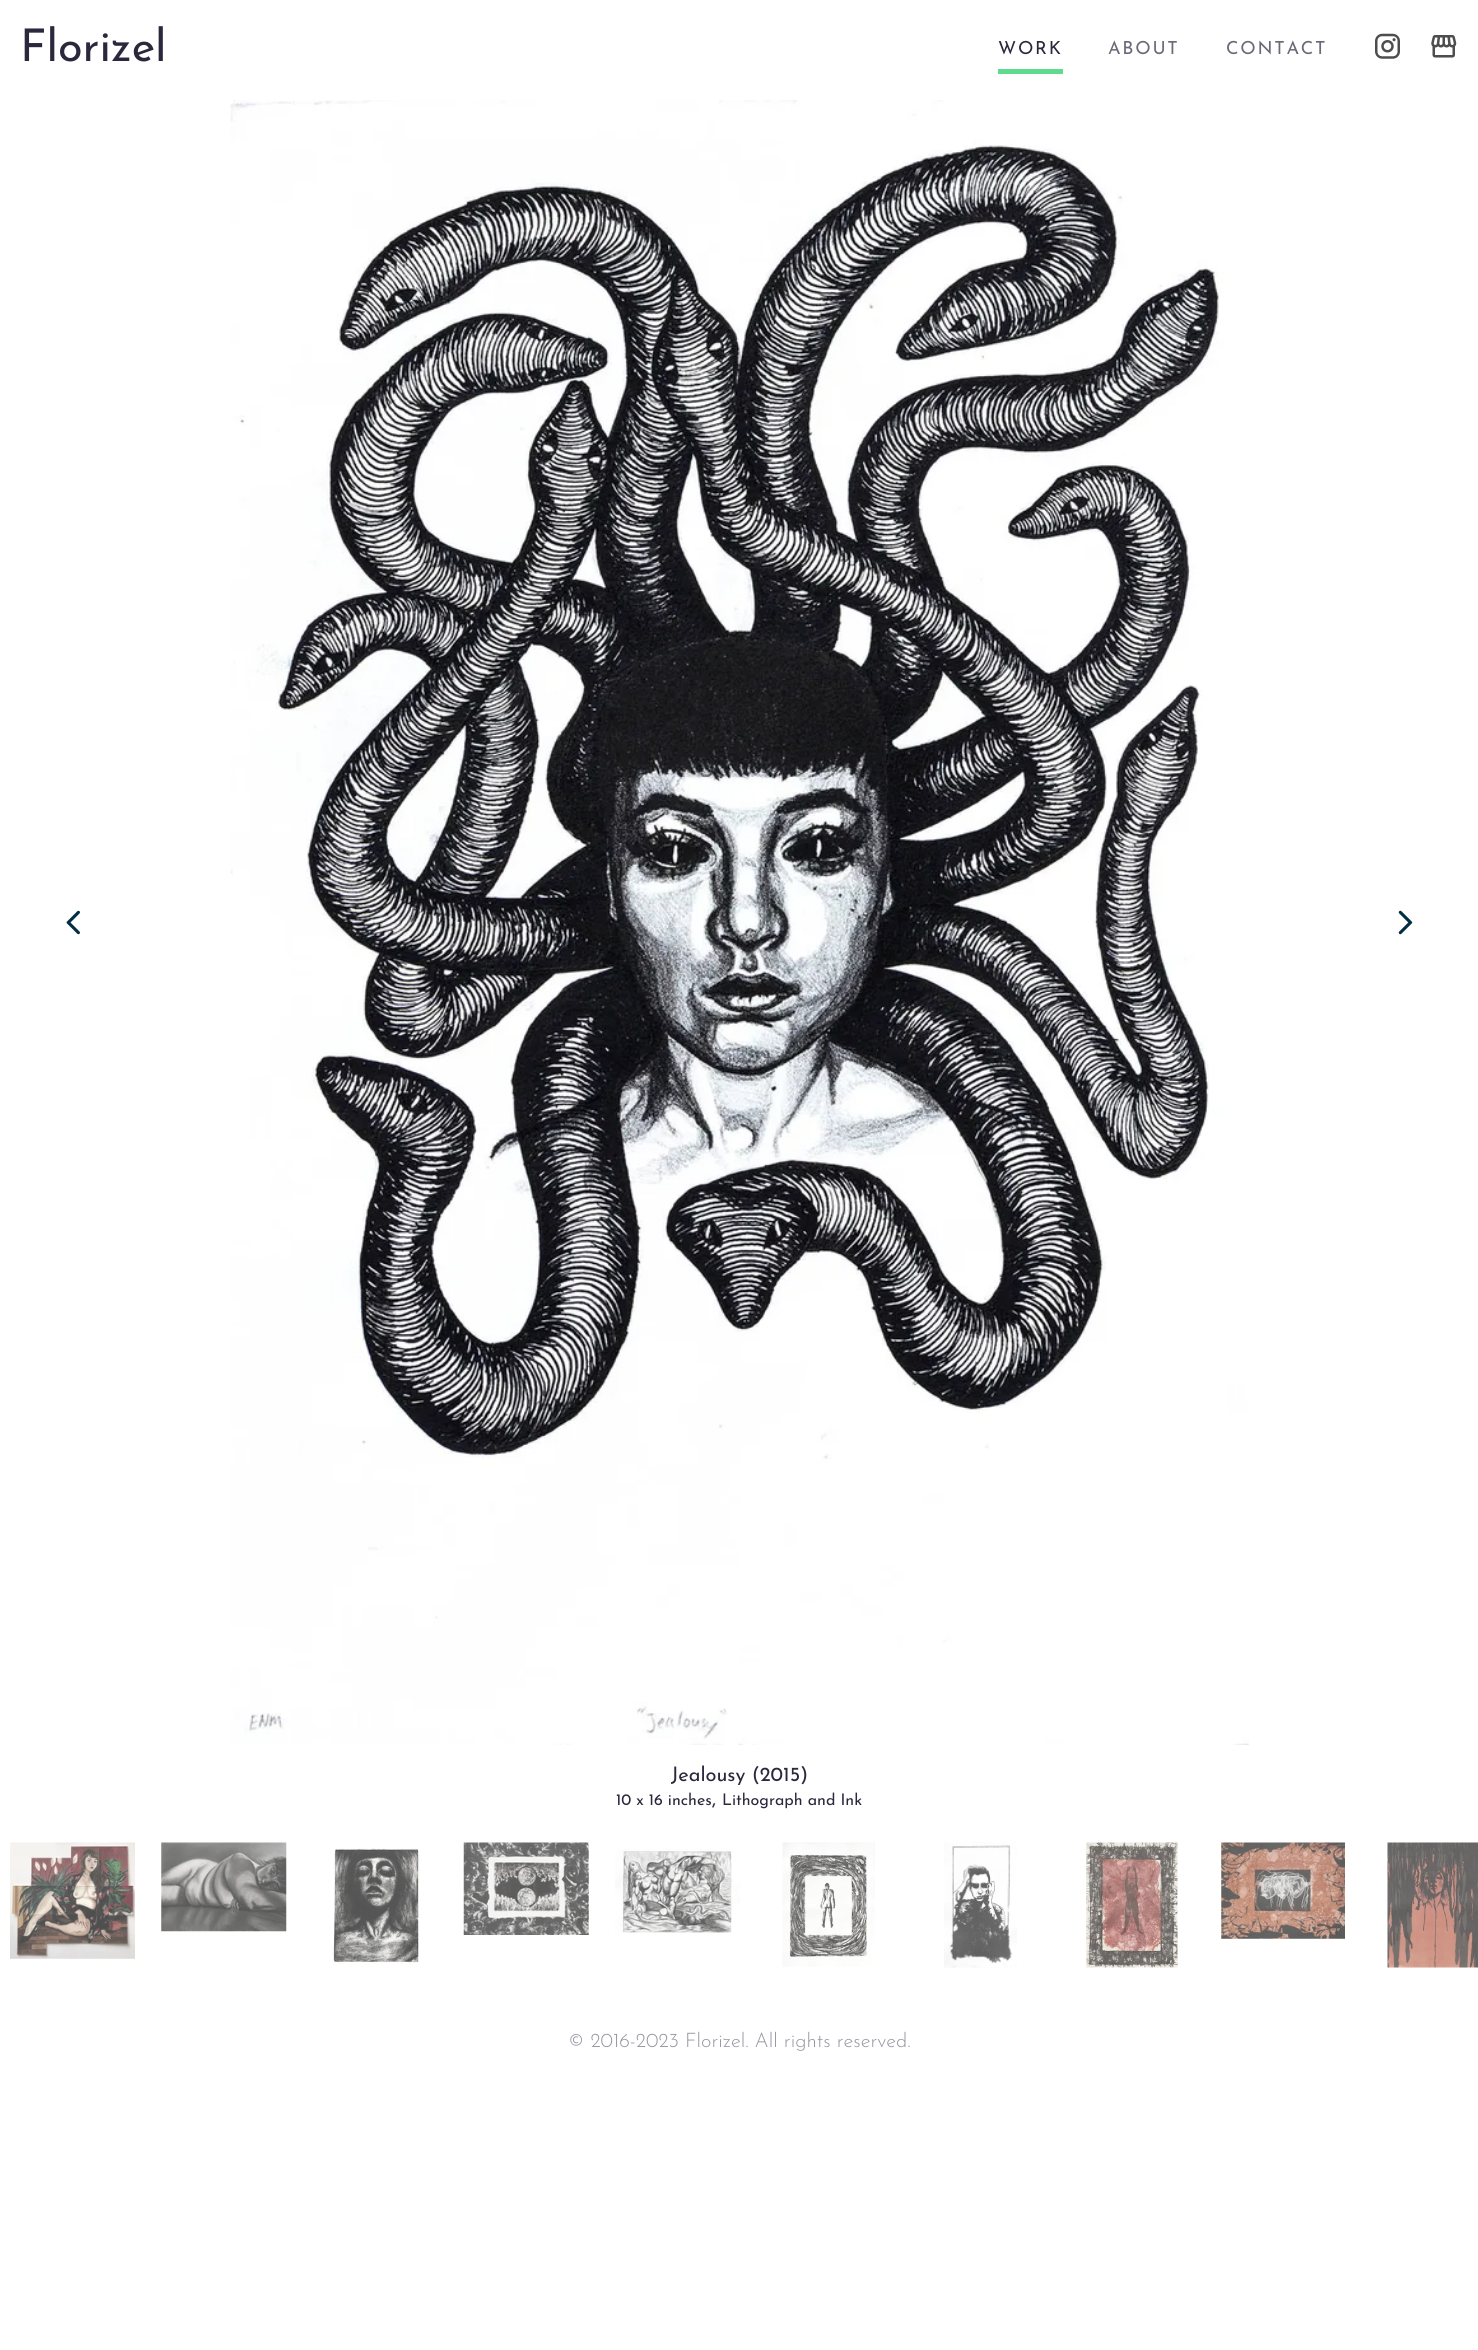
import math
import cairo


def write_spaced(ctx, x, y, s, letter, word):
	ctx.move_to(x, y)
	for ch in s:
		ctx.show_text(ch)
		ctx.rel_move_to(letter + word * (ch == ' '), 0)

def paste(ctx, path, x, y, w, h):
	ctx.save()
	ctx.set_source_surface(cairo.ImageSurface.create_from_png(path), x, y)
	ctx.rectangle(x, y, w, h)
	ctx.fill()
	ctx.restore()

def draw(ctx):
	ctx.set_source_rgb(1, 1, 1)
	ctx.paint()
	ctx.select_font_face('Josefin Sans')
	ctx.set_font_size(45)
	ctx.set_source_rgb(0.169, 0.157, 0.239)
	ctx.move_to(20, 61)
	ctx.show_text('Florizel')
	ctx.set_font_size(18)
	write_spaced(ctx, 998, 54, 'WORK', 1.75, 0)
	ctx.set_source_rgb(0.369, 0.859, 0.557)
	ctx.rectangle(998, 69, 65, 5)
	ctx.fill()
	ctx.set_source_rgb(0.42, 0.412, 0.467)
	write_spaced(ctx, 1108, 54, 'ABOUT', 1.75, 0)
	write_spaced(ctx, 1226, 54, 'CONTACT', 1.75, 0)
	paste(ctx, 'media/1.png', 1375, 33, 25, 26)
	paste(ctx, 'media/2.png', 1431, 35, 26, 23)
	paste(ctx, 'media/3.png', 66, 910, 14, 25)
	paste(ctx, 'media/4.png', 230, 100, 1019, 1645)
	paste(ctx, 'media/5.png', 1398, 910, 15, 25)
	ctx.set_font_size(20)
	ctx.set_source_rgb(0.169, 0.157, 0.239)
	ctx.move_to(671, 1781)
	ctx.show_text('Jealousy (2015)')
	ctx.set_font_size(16)
	ctx.move_to(616, 1805)
	ctx.show_text('10 x 16 inches')
	ctx.set_font_size(20)
	ctx.move_to(712, 1805)
	ctx.show_text(',')
	ctx.set_font_size(16)
	ctx.move_to(722, 1805)
	ctx.show_text('Lithograph and Ink')
	paste(ctx, 'media/6.png', 10, 1842, 125, 117)
	paste(ctx, 'media/7.png', 161, 1842, 126, 90)
	paste(ctx, 'media/8.png', 332, 1848, 89, 116)
	paste(ctx, 'media/9.png', 463, 1842, 126, 93)
	paste(ctx, 'media/10.png', 615, 1849, 125, 84)
	paste(ctx, 'media/11.png', 782, 1842, 93, 125)
	paste(ctx, 'media/12.png', 944, 1842, 73, 126)
	paste(ctx, 'media/13.png', 1086, 1842, 92, 126)
	paste(ctx, 'media/14.png', 1221, 1842, 124, 97)
	paste(ctx, 'media/15.png', 1387, 1842, 91, 126)
	ctx.select_font_face('Josefin Sans Light')
	ctx.set_font_size(20)
	ctx.set_source_rgb(0.584, 0.58, 0.62)
	ctx.move_to(568, 2047)
	ctx.show_text('© 2016-2023 Florizel. All rights reserved.')


surface = cairo.ImageSurface(cairo.FORMAT_RGB24, 1478, 2350)
ctx = cairo.Context(surface)
options = cairo.FontOptions()
options.set_hint_metrics(cairo.HINT_METRICS_OFF)
options.set_hint_style(cairo.HINT_STYLE_NONE)
ctx.set_font_options(options)
ctx.set_miter_limit(4)
draw(ctx)
surface.write_to_png('image.png')
